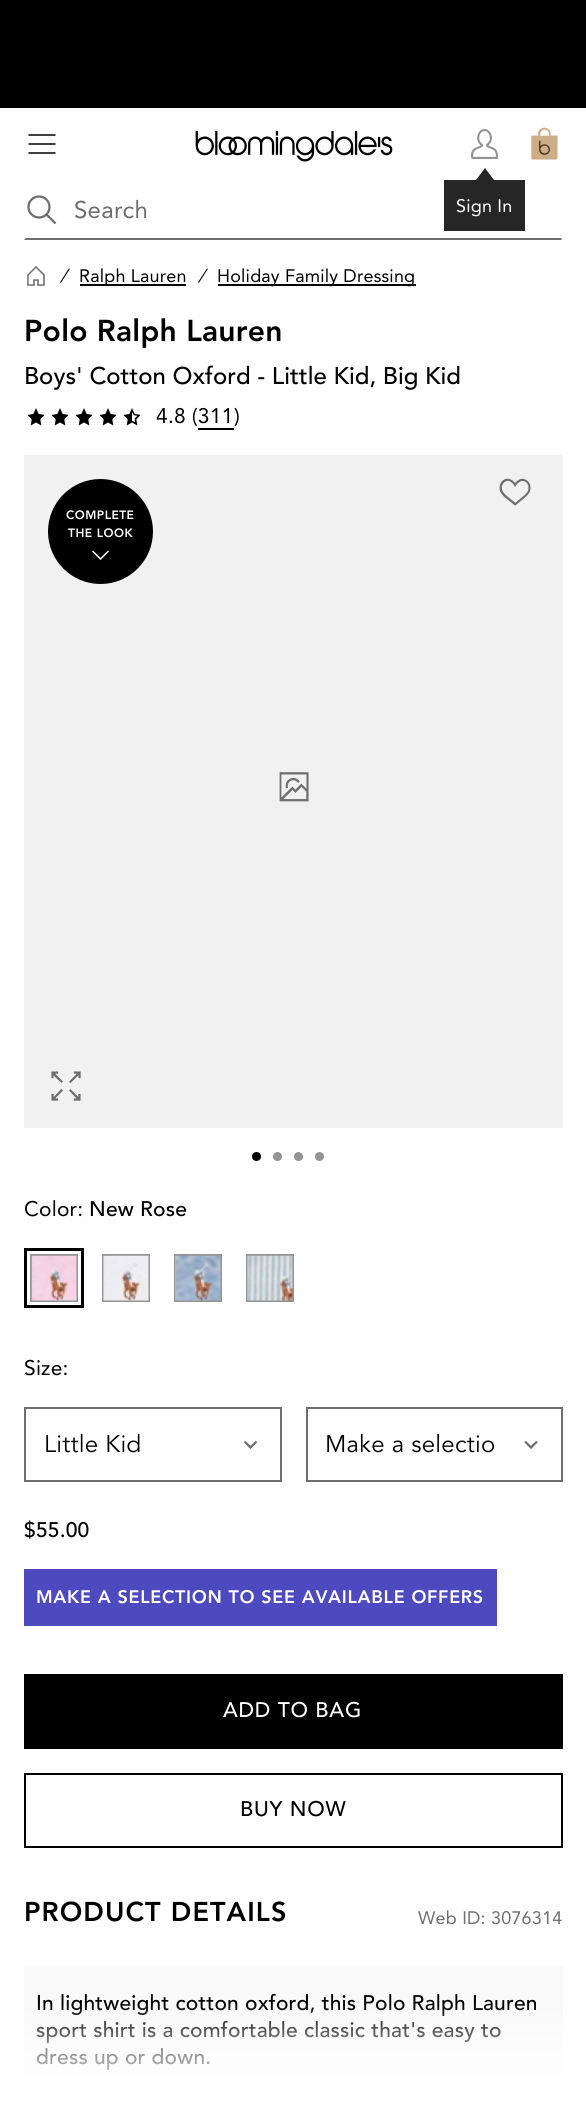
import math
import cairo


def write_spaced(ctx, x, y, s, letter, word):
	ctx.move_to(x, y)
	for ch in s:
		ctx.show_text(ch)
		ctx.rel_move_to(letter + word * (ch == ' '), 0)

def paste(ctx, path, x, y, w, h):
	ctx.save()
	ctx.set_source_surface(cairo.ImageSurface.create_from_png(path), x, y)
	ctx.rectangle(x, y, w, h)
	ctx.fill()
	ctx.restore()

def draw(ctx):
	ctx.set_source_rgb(1, 1, 1)
	ctx.paint()
	ctx.set_source_rgb(0, 0, 0)
	ctx.rectangle(0, 0, 586, 108)
	ctx.fill()
	paste(ctx, 'media/1.png', 27, 195, 30, 30)
	ctx.set_source_rgb(0.431, 0.431, 0.431)
	ctx.new_path()
	ctx.move_to(562, 240)
	ctx.line_to(24, 240)
	ctx.line_to(26, 238)
	ctx.line_to(561, 238)
	ctx.close_path()
	ctx.fill()
	ctx.select_font_face('Avenir')
	ctx.set_font_size(24)
	write_spaced(ctx, 74, 218, 'Search', 0.25, 0)
	ctx.new_path()
	ctx.move_to(28.5, 135)
	ctx.line_to(55.5, 135)
	ctx.move_to(28.5, 144)
	ctx.line_to(55.5, 144)
	ctx.move_to(28.5, 153)
	ctx.line_to(55.5, 153)
	ctx.set_source_rgb(0, 0, 0)
	ctx.set_line_width(1.5)
	ctx.stroke()
	paste(ctx, 'media/2.png', 195, 131, 198, 31)
	paste(ctx, 'media/3.png', 531, 127, 27, 33)
	paste(ctx, 'media/4.png', 471, 129, 27, 30)
	ctx.set_source_rgb(0.149, 0.149, 0.149)
	ctx.rectangle(444, 180, 81, 51)
	ctx.fill()
	ctx.new_path()
	ctx.move_to(494, 180)
	ctx.line_to(476, 180)
	ctx.line_to(485, 168)
	ctx.close_path()
	ctx.fill()
	ctx.set_font_size(18)
	ctx.set_source_rgb(1, 1, 1)
	write_spaced(ctx, 456, 212, 'Sign In', 0.2, 0)
	paste(ctx, 'media/5.png', 27, 266, 18, 20)
	ctx.select_font_face('Avenir', cairo.FONT_SLANT_ITALIC)
	ctx.set_source_rgb(0, 0, 0)
	write_spaced(ctx, 60, 282, '/', 0.2, 0)
	ctx.rectangle(80, 284, 106, 2)
	ctx.fill()
	ctx.select_font_face('Avenir')
	write_spaced(ctx, 79, 282, 'Ralph Lauren', 0.2, 0)
	ctx.select_font_face('Avenir', cairo.FONT_SLANT_ITALIC)
	write_spaced(ctx, 198, 282, '/', 0.2, 0)
	ctx.rectangle(218, 284, 198, 2)
	ctx.fill()
	ctx.select_font_face('Avenir')
	write_spaced(ctx, 217, 282, 'Holiday Family Dressing', 0.2, 0)
	ctx.select_font_face('Avenir Black')
	ctx.set_font_size(30)
	write_spaced(ctx, 24, 341, 'Polo Ralph Lauren', 0.25, 0)
	ctx.select_font_face('Avenir Medium')
	ctx.set_font_size(24)
	ctx.move_to(24, 384)
	ctx.show_text('Boys\' Cotton Oxford - Little Kid, Big Kid')
	paste(ctx, 'media/6.png', 27, 408, 18, 18)
	paste(ctx, 'media/6.png', 51, 408, 18, 18)
	paste(ctx, 'media/6.png', 75, 408, 18, 18)
	paste(ctx, 'media/6.png', 99, 408, 18, 18)
	paste(ctx, 'media/7.png', 123, 408, 18, 18)
	ctx.select_font_face('Avenir')
	ctx.set_font_size(21)
	write_spaced(ctx, 156, 423, '4.8 (311', 0.2, 0)
	write_spaced(ctx, 234, 423, ')', 0.2, 0)
	ctx.rectangle(198, 428, 36, 2)
	ctx.fill()
	ctx.set_source_rgb(0.945, 0.945, 0.945)
	ctx.rectangle(24, 455, 539, 673)
	ctx.fill()
	paste(ctx, 'media/8.png', 279, 772, 30, 30)
	paste(ctx, 'media/9.png', 51, 1071, 30, 30)
	ctx.set_source_rgb(0, 0, 0)
	ctx.arc(256.5, 1156.5, 3.5, 0, 2 * math.pi)
	ctx.fill_preserve()
	ctx.set_line_width(2)
	ctx.stroke()
	ctx.set_source_rgb(0.58, 0.58, 0.58)
	ctx.arc(277.5, 1156.5, 3.5, 0, 2 * math.pi)
	ctx.fill_preserve()
	ctx.stroke()
	ctx.arc(298.5, 1156.5, 3.5, 0, 2 * math.pi)
	ctx.fill_preserve()
	ctx.stroke()
	ctx.arc(319.5, 1156.5, 3.5, 0, 2 * math.pi)
	ctx.fill_preserve()
	ctx.stroke()
	paste(ctx, 'media/10.png', 499, 478, 32, 28)
	ctx.set_source_rgb(0, 0, 0)
	ctx.arc(100.5, 531.5, 52.5, 0, 2 * math.pi)
	ctx.fill()
	ctx.select_font_face('Avenir Black')
	ctx.set_font_size(12)
	ctx.set_source_rgb(1, 1, 1)
	write_spaced(ctx, 66, 519, 'COMPLETE', 0.5, 0)
	write_spaced(ctx, 68, 537, 'THE LOOK', 0.5, 0)
	paste(ctx, 'media/11.png', 92, 550, 17, 10)
	ctx.select_font_face('Avenir')
	ctx.set_font_size(21)
	ctx.set_source_rgb(0, 0, 0)
	write_spaced(ctx, 24, 1216, 'Color:', 0.2, 0)
	ctx.select_font_face('Avenir Medium')
	write_spaced(ctx, 89, 1216, 'New Rose', 0.2, 0)
	ctx.rectangle(25.5, 1249.5, 57, 57)
	ctx.set_line_width(3)
	ctx.stroke()
	ctx.rectangle(31, 1255, 46, 46)
	ctx.set_source_rgb(0.58, 0.58, 0.58)
	ctx.set_line_width(2)
	ctx.stroke()
	paste(ctx, 'media/12.png', 31, 1255, 46, 46)
	ctx.rectangle(103, 1255, 46, 46)
	ctx.stroke()
	paste(ctx, 'media/13.png', 103, 1255, 46, 46)
	ctx.rectangle(175, 1255, 46, 46)
	ctx.stroke()
	paste(ctx, 'media/14.png', 175, 1255, 46, 46)
	ctx.rectangle(247, 1255, 46, 46)
	ctx.stroke()
	paste(ctx, 'media/15.png', 247, 1255, 46, 46)
	ctx.select_font_face('Avenir')
	ctx.set_source_rgb(0, 0, 0)
	write_spaced(ctx, 24, 1375, 'Size:', 0.2, 0)
	paste(ctx, 'media/16.png', 243, 1440, 15, 9)
	ctx.rectangle(25, 1408, 256, 73)
	ctx.set_source_rgb(0.431, 0.431, 0.431)
	ctx.stroke()
	ctx.select_font_face('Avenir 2')
	ctx.set_font_size(24)
	ctx.set_source_rgb(0, 0, 0)
	write_spaced(ctx, 44, 1452, 'Little Kid', 0.25, 0)
	paste(ctx, 'media/17.png', 524, 1440, 14, 9)
	ctx.rectangle(307, 1408, 255, 73)
	ctx.set_source_rgb(0.431, 0.431, 0.431)
	ctx.stroke()
	ctx.set_source_rgb(0, 0, 0)
	write_spaced(ctx, 325, 1452, 'Make a selectio', 0.25, 0)
	ctx.select_font_face('Avenir Medium')
	ctx.set_font_size(21)
	write_spaced(ctx, 24, 1537, '$55.00', 0.2, 0)
	ctx.set_source_rgb(0.302, 0.286, 0.745)
	ctx.rectangle(24, 1569, 473, 57)
	ctx.fill()
	ctx.select_font_face('Avenir Black')
	ctx.set_font_size(18)
	ctx.set_source_rgb(1, 1, 1)
	write_spaced(ctx, 36, 1603, 'MAKE A SELECTION TO SEE AVAILABLE OFFERS', 0.7, 0)
	ctx.set_source_rgb(0, 0, 0)
	ctx.rectangle(24, 1674, 539, 75)
	ctx.fill()
	ctx.select_font_face('Avenir Medium')
	ctx.set_font_size(21)
	ctx.set_source_rgb(1, 1, 1)
	write_spaced(ctx, 223, 1717, 'ADD TO BAG', 0.75, 0)
	ctx.rectangle(25, 1774, 537, 73)
	ctx.set_source_rgb(0, 0, 0)
	ctx.stroke()
	write_spaced(ctx, 240, 1816, 'BUY NOW', 0.75, 0)
	ctx.select_font_face('Avenir Black')
	ctx.set_font_size(27)
	write_spaced(ctx, 24, 1921, 'PRODUCT DETAILS', 1.1, 0)
	ctx.select_font_face('Avenir')
	ctx.set_font_size(18)
	ctx.set_source_rgb(0.431, 0.431, 0.431)
	write_spaced(ctx, 418, 1924, 'Web ID: 3076314', 0.2, 0)
	ctx.set_source_rgb(0.973, 0.973, 0.973)
	ctx.rectangle(24, 1967, 539, 139)
	ctx.fill()
	ctx.select_font_face('Avenir Medium')
	ctx.set_font_size(21)
	ctx.set_source_rgb(0, 0, 0)
	for x, y, s in [
		(36, 2010, 'In lightweight cotton oxford, this Polo Ralph Lauren'),
		(36, 2037, 'sport shirt is a comfortable classic that\'s easy to'),
		(36, 2064, 'dress up or down.'),
	]:
		write_spaced(ctx, x, y, s, 0.2, 0)
	gradient = cairo.LinearGradient(293, 2003, 293, 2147)
	gradient.add_color_stop_rgba(0, 1, 1, 1, 0)
	gradient.add_color_stop_rgba(0.28, 1, 1, 1, 0.5)
	gradient.add_color_stop_rgba(0.72, 1, 1, 1, 1)
	ctx.set_source(gradient)
	ctx.rectangle(24, 2005, 539, 101)
	ctx.fill()


surface = cairo.ImageSurface(cairo.FORMAT_RGB24, 586, 2118)
ctx = cairo.Context(surface)
options = cairo.FontOptions()
options.set_hint_metrics(cairo.HINT_METRICS_OFF)
options.set_hint_style(cairo.HINT_STYLE_NONE)
ctx.set_font_options(options)
ctx.set_miter_limit(4)
draw(ctx)
surface.write_to_png('image.png')
